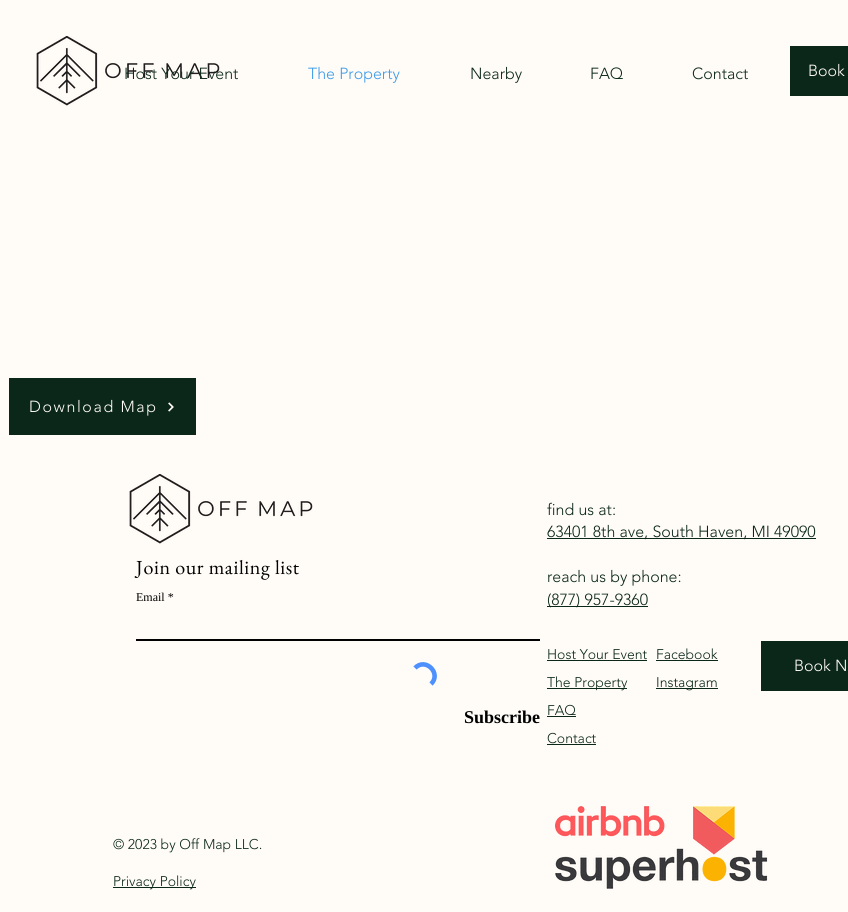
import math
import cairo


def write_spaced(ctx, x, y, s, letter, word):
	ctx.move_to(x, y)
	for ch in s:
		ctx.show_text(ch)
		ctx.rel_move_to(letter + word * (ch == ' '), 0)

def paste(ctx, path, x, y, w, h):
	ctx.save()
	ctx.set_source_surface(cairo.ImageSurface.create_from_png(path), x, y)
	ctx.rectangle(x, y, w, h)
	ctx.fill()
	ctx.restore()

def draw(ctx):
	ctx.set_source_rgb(1, 0.988, 0.965)
	ctx.paint()
	paste(ctx, 'media/1.png', 36, 36, 184, 70)
	ctx.select_font_face('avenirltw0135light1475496 Light')
	ctx.set_font_size(16)
	ctx.set_source_rgb(0.043, 0.153, 0.098)
	ctx.move_to(124, 79)
	ctx.show_text('Host Your Event')
	ctx.set_source_rgb(0.239, 0.608, 0.914)
	ctx.move_to(308, 79)
	ctx.show_text('The Property')
	ctx.set_source_rgb(0.043, 0.153, 0.098)
	for x, y, s in [
		(470, 79, 'Nearby'),
		(590, 79, 'FAQ'),
		(692, 79, 'Contact'),
	]:
		ctx.move_to(x, y)
		ctx.show_text(s)
	ctx.rectangle(790, 46, 58, 50)
	ctx.fill()
	ctx.set_source_rgb(1, 0.988, 0.965)
	ctx.move_to(808, 76)
	ctx.show_text('Book')
	ctx.set_source_rgb(0.043, 0.153, 0.098)
	ctx.rectangle(9, 378, 187, 57)
	ctx.fill()
	ctx.set_source_rgb(1, 0.988, 0.965)
	write_spaced(ctx, 29, 412, 'Download Map', 1.6, 0)
	paste(ctx, 'media/2.png', 168, 402, 6, 10)
	paste(ctx, 'media/1.png', 129, 474, 184, 70)
	ctx.select_font_face('EB Garamond')
	ctx.set_font_size(20)
	ctx.set_source_rgb(0, 0, 0)
	write_spaced(ctx, 136, 574, 'Join our mailing list', 0.6, 0)
	ctx.select_font_face('Liberation Serif')
	ctx.set_font_size(12)
	ctx.move_to(136, 601)
	ctx.show_text('Email *')
	ctx.rectangle(136, 639, 404, 2)
	ctx.fill()
	ctx.new_path()
	ctx.move_to(415, 668)
	ctx.curve_to(425.5, 657, 442, 673.5, 431, 684)
	ctx.set_source_rgb(0.302, 0.565, 0.996)
	ctx.set_line_width(4.6)
	ctx.stroke()
	ctx.select_font_face('Liberation Serif', cairo.FONT_SLANT_NORMAL, cairo.FONT_WEIGHT_BOLD)
	ctx.set_font_size(18)
	ctx.set_source_rgb(0, 0, 0)
	ctx.move_to(464, 723)
	ctx.show_text('Subscribe')
	ctx.select_font_face('avenirltw0135light1475496 Light')
	ctx.set_font_size(14)
	ctx.set_source_rgb(0.043, 0.153, 0.098)
	ctx.move_to(113, 849)
	ctx.show_text('© 2023 by Off Map LLC.')
	ctx.rectangle(113, 887, 83, 1)
	ctx.fill()
	ctx.move_to(113, 886)
	ctx.show_text('Privacy Policy')
	ctx.set_font_size(16)
	ctx.move_to(547, 515)
	ctx.show_text('find us at:')
	ctx.rectangle(547, 538, 269, 1)
	ctx.fill()
	ctx.move_to(547, 537)
	ctx.show_text('63401 8th ave, South Haven, MI 49090')
	ctx.move_to(547, 582)
	ctx.show_text('reach us by phone:')
	ctx.rectangle(547, 606, 101, 1)
	ctx.fill()
	ctx.move_to(547, 605)
	ctx.show_text('(877) 957-9360')
	ctx.set_font_size(14)
	ctx.move_to(547, 659)
	ctx.show_text('Host Your Event')
	ctx.rectangle(547, 660, 100, 1)
	ctx.fill()
	ctx.rectangle(547, 688, 80, 1)
	ctx.fill()
	ctx.move_to(547, 687)
	ctx.show_text('The Property')
	ctx.move_to(547, 715)
	ctx.show_text('FAQ')
	ctx.rectangle(547, 716, 29, 1)
	ctx.fill()
	ctx.move_to(547, 743)
	ctx.show_text('Contact')
	ctx.rectangle(547, 744, 49, 1)
	ctx.fill()
	ctx.move_to(656, 659)
	ctx.show_text('Facebook')
	ctx.rectangle(656, 660, 62, 1)
	ctx.fill()
	ctx.rectangle(656, 688, 62, 1)
	ctx.fill()
	ctx.move_to(656, 687)
	ctx.show_text('Instagram')
	ctx.rectangle(761, 641, 87, 50)
	ctx.fill()
	ctx.set_font_size(16)
	ctx.set_source_rgb(1, 0.988, 0.965)
	ctx.move_to(794, 671)
	ctx.show_text('Book N')
	paste(ctx, 'media/3.png', 555, 806, 213, 83)


surface = cairo.ImageSurface(cairo.FORMAT_RGB24, 848, 912)
ctx = cairo.Context(surface)
options = cairo.FontOptions()
options.set_hint_metrics(cairo.HINT_METRICS_OFF)
options.set_hint_style(cairo.HINT_STYLE_NONE)
ctx.set_font_options(options)
ctx.set_miter_limit(4)
draw(ctx)
surface.write_to_png('image.png')
